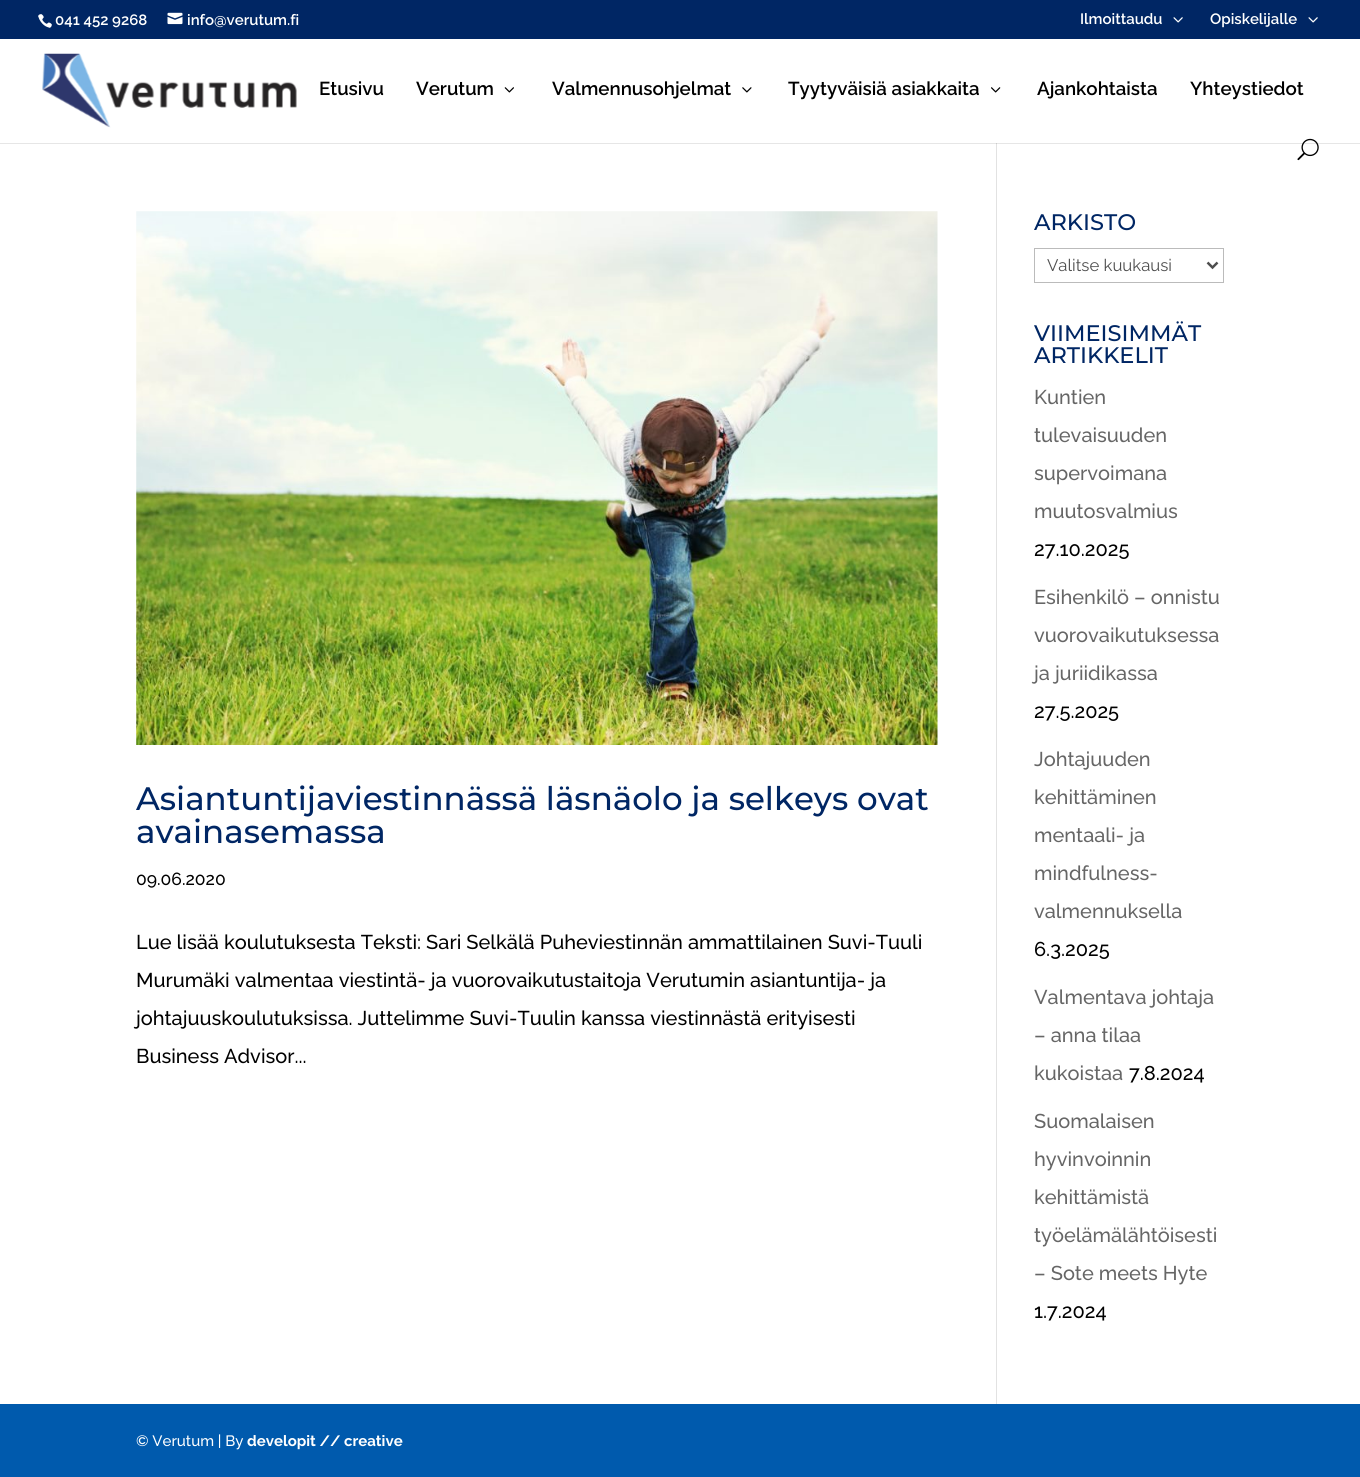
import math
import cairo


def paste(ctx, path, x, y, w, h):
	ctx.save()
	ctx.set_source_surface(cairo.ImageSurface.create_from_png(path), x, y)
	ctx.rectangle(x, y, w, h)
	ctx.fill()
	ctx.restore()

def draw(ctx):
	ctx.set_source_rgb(1, 1, 1)
	ctx.paint()
	ctx.set_source_rgb(0.902, 0.902, 0.902)
	ctx.rectangle(0, 143, 1360, 1)
	ctx.fill()
	ctx.set_source_rgb(0, 0.149, 0.392)
	ctx.rectangle(0, 0, 1360, 39)
	ctx.fill()
	paste(ctx, 'media/1.png', 38, 14, 14, 14)
	ctx.select_font_face('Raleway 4 Thin')
	ctx.set_font_size(15)
	ctx.set_source_rgb(1, 1, 1)
	ctx.move_to(55, 25)
	ctx.show_text('041 452 9268')
	paste(ctx, 'media/2.png', 167, 12, 16, 13)
	ctx.move_to(187, 25)
	ctx.show_text('info@verutum.fi')
	ctx.move_to(1080, 24)
	ctx.show_text('Ilmoittaudu')
	paste(ctx, 'media/3.png', 1173, 17, 10, 6)
	ctx.move_to(1210, 24)
	ctx.show_text('Opiskelijalle')
	paste(ctx, 'media/3.png', 1308, 17, 10, 6)
	ctx.set_source_rgb(0.886, 0.886, 0.886)
	ctx.rectangle(996, 139, 1, 1265)
	ctx.fill()
	ctx.set_source_rgb(0.796, 0.796, 0.796)
	ctx.rectangle(996, 142, 1, 2)
	ctx.fill()
	ctx.set_source_rgb(1, 1, 1)
	ctx.rectangle(996, 139, 1, 4)
	ctx.fill()
	paste(ctx, 'media/4.png', 42, 53, 255, 75)
	ctx.set_font_size(18.75)
	ctx.set_source_rgb(0, 0, 0)
	ctx.move_to(319, 95)
	ctx.show_text('Etusivu')
	ctx.move_to(416, 95)
	ctx.show_text('Verutum')
	paste(ctx, 'media/5.png', 504, 87, 10, 6)
	ctx.move_to(552, 95)
	ctx.show_text('Valmennusohjelmat')
	paste(ctx, 'media/6.png', 742, 87, 10, 6)
	ctx.move_to(788, 95)
	ctx.show_text('Tyytyväisiä asiakkaita')
	paste(ctx, 'media/7.png', 991, 87, 10, 6)
	ctx.move_to(1037, 95)
	ctx.show_text('Ajankohtaista')
	ctx.move_to(1190, 95)
	ctx.show_text('Yhteystiedot')
	paste(ctx, 'media/8.png', 1297, 138, 22, 23)
	paste(ctx, 'media/9.png', 136, 211, 802, 534)
	ctx.select_font_face('Montserrat Thin')
	ctx.set_font_size(32.5)
	ctx.set_source_rgb(0, 0.149, 0.392)
	ctx.move_to(136, 810)
	ctx.show_text('Asiantuntijaviestinnässä läsnäolo ja selkeys ovat')
	ctx.move_to(136, 843)
	ctx.show_text('avainasemassa')
	ctx.select_font_face('Raleway Thin')
	ctx.set_font_size(17.5)
	ctx.set_source_rgb(0, 0, 0)
	ctx.move_to(136, 885)
	ctx.show_text('09.06.2020')
	ctx.set_font_size(20)
	for x, y, s in [
		(136, 949, 'Lue lisää koulutuksesta Teksti: Sari Selkälä Puheviestinnän ammattilainen Suvi-Tuuli'),
		(136, 987, 'Murumäki valmentaa viestintä- ja vuorovaikutustaitoja Verutumin asiantuntija- ja'),
		(136, 1025, 'johtajuuskoulutuksissa. Juttelimme Suvi-Tuulin kanssa viestinnästä erityisesti'),
		(136, 1063, 'Business Advisor...'),
	]:
		ctx.move_to(x, y)
		ctx.show_text(s)
	ctx.select_font_face('Montserrat Thin')
	ctx.set_font_size(22.5)
	ctx.set_source_rgb(0, 0.149, 0.392)
	ctx.move_to(1034, 230)
	ctx.show_text('ARKISTO')
	ctx.rectangle(1034.5, 248.5, 189, 34)
	ctx.set_source_rgb(0.733, 0.733, 0.733)
	ctx.set_line_width(1)
	ctx.stroke()
	ctx.new_path()
	ctx.move_to(1207.5, 262.5)
	ctx.line_to(1212.5, 267.5)
	ctx.line_to(1217.5, 262.5)
	ctx.set_source_rgb(0.306, 0.306, 0.306)
	ctx.set_line_width(2.5)
	ctx.stroke()
	ctx.select_font_face('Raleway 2 Thin')
	ctx.set_font_size(16.75)
	ctx.move_to(1047, 271)
	ctx.show_text('Valitse kuukausi')
	ctx.select_font_face('Montserrat Thin')
	ctx.set_font_size(22.5)
	ctx.set_source_rgb(0, 0.149, 0.392)
	ctx.move_to(1034, 341)
	ctx.show_text('VIIMEISIMMÄT')
	ctx.move_to(1034, 363)
	ctx.show_text('ARTIKKELIT')
	ctx.select_font_face('Raleway Thin')
	ctx.set_font_size(20)
	ctx.set_source_rgb(0.4, 0.4, 0.4)
	for x, y, s in [
		(1034, 404, 'Kuntien'),
		(1034, 442, 'tulevaisuuden'),
		(1034, 480, 'supervoimana'),
		(1034, 518, 'muutosvalmius'),
	]:
		ctx.move_to(x, y)
		ctx.show_text(s)
	ctx.set_source_rgb(0, 0, 0)
	ctx.move_to(1034, 556)
	ctx.show_text('27.10.2025')
	ctx.set_source_rgb(0.4, 0.4, 0.4)
	for x, y, s in [
		(1034, 604, 'Esihenkilö – onnistu'),
		(1034, 642, 'vuorovaikutuksessa'),
		(1034, 680, 'ja juriidikassa'),
	]:
		ctx.move_to(x, y)
		ctx.show_text(s)
	ctx.set_source_rgb(0, 0, 0)
	ctx.move_to(1034, 718)
	ctx.show_text('27.5.2025')
	ctx.set_source_rgb(0.4, 0.4, 0.4)
	for x, y, s in [
		(1034, 766, 'Johtajuuden'),
		(1034, 804, 'kehittäminen'),
		(1034, 842, 'mentaali- ja'),
		(1034, 880, 'mindfulness-'),
		(1034, 918, 'valmennuksella'),
	]:
		ctx.move_to(x, y)
		ctx.show_text(s)
	ctx.set_source_rgb(0, 0, 0)
	ctx.move_to(1034, 956)
	ctx.show_text('6.3.2025')
	ctx.set_source_rgb(0.4, 0.4, 0.4)
	for x, y, s in [
		(1034, 1004, 'Valmentava johtaja'),
		(1034, 1042, '– anna tilaa'),
		(1034, 1080, 'kukoistaa'),
	]:
		ctx.move_to(x, y)
		ctx.show_text(s)
	ctx.set_source_rgb(0, 0, 0)
	ctx.move_to(1129, 1080)
	ctx.show_text('7.8.2024')
	ctx.set_source_rgb(0.4, 0.4, 0.4)
	for x, y, s in [
		(1034, 1128, 'Suomalaisen'),
		(1034, 1166, 'hyvinvoinnin'),
		(1034, 1204, 'kehittämistä'),
		(1034, 1242, 'työelämälähtöisesti'),
		(1034, 1280, '– Sote meets Hyte'),
	]:
		ctx.move_to(x, y)
		ctx.show_text(s)
	ctx.set_source_rgb(0, 0, 0)
	ctx.move_to(1034, 1318)
	ctx.show_text('1.7.2024')
	ctx.set_source_rgb(0, 0.353, 0.678)
	ctx.rectangle(0, 1404, 1360, 73)
	ctx.fill()
	ctx.set_font_size(15)
	ctx.set_source_rgb(1, 1, 1)
	ctx.move_to(136, 1446)
	ctx.show_text('© Verutum | By')
	ctx.select_font_face('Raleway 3 Thin')
	ctx.move_to(247, 1446)
	ctx.show_text('developit // creative')


surface = cairo.ImageSurface(cairo.FORMAT_RGB24, 1360, 1477)
ctx = cairo.Context(surface)
options = cairo.FontOptions()
options.set_hint_metrics(cairo.HINT_METRICS_OFF)
options.set_hint_style(cairo.HINT_STYLE_NONE)
ctx.set_font_options(options)
ctx.set_miter_limit(4)
draw(ctx)
surface.write_to_png('image.png')
